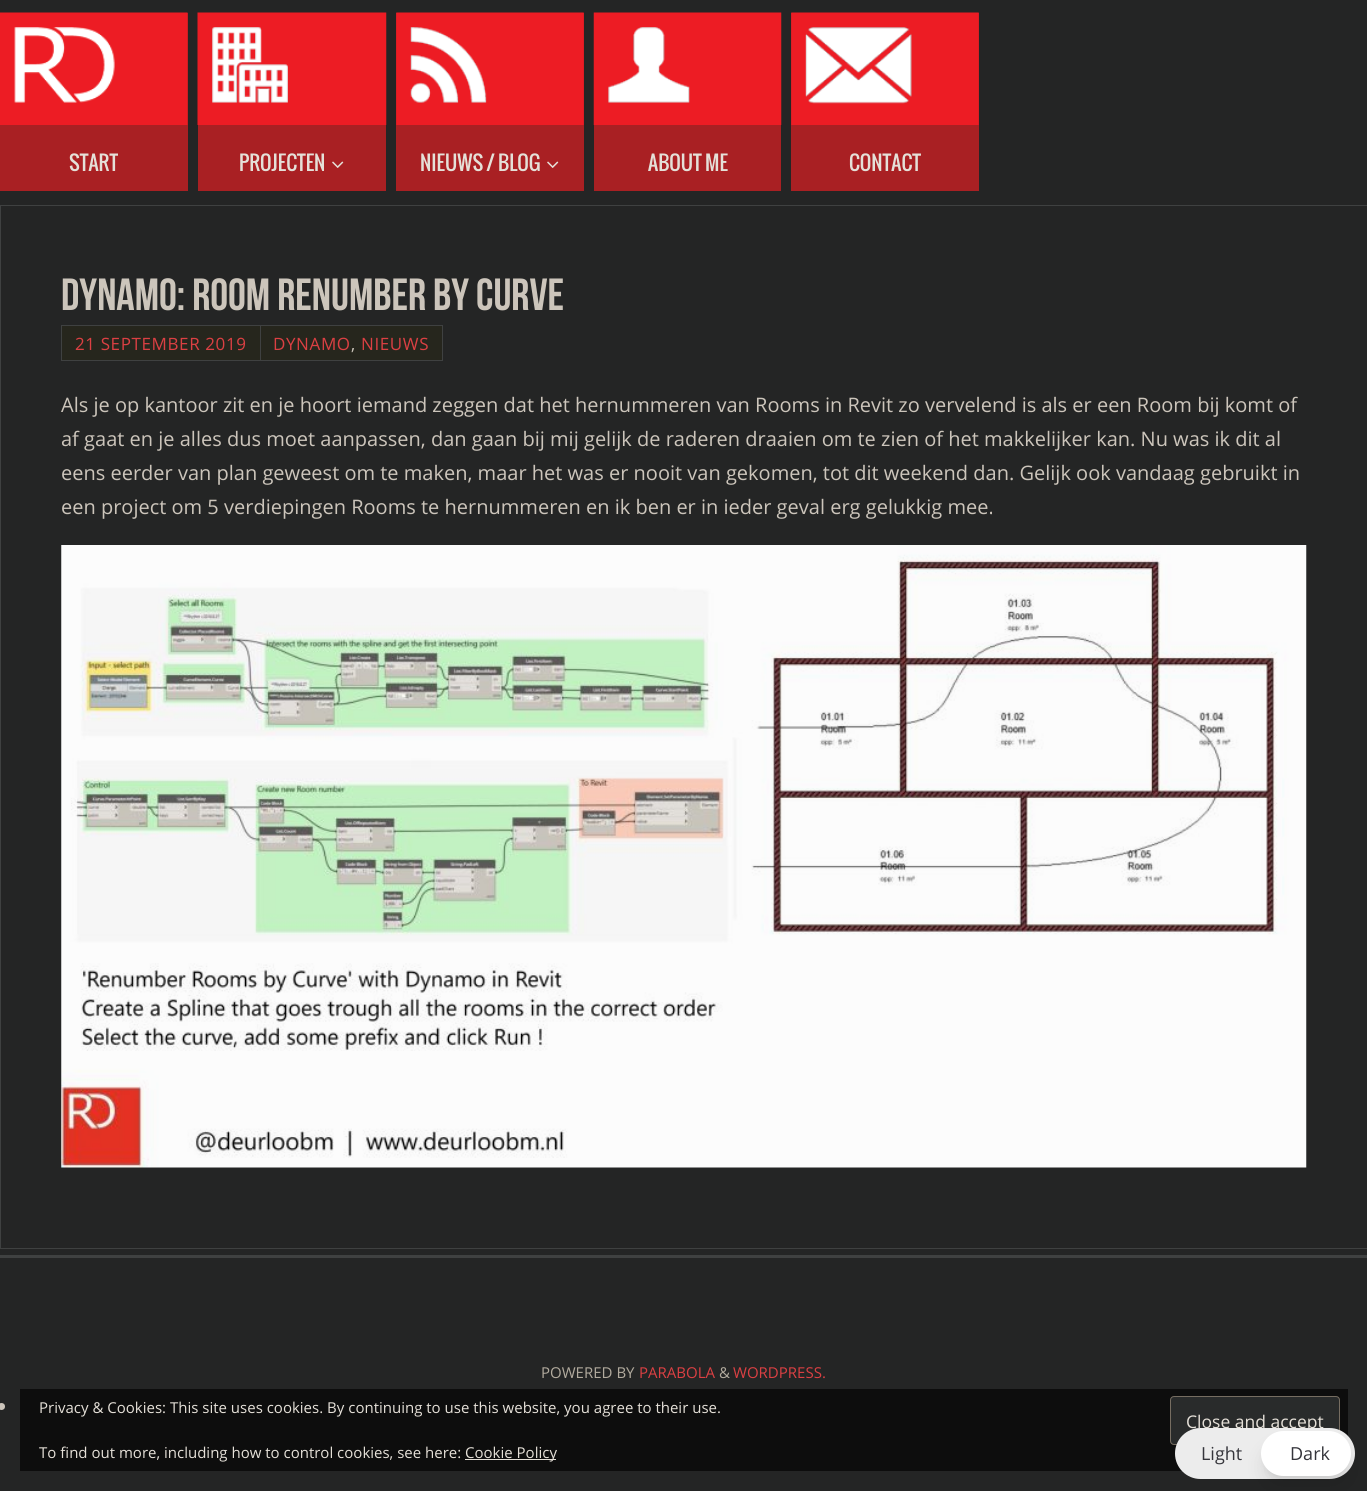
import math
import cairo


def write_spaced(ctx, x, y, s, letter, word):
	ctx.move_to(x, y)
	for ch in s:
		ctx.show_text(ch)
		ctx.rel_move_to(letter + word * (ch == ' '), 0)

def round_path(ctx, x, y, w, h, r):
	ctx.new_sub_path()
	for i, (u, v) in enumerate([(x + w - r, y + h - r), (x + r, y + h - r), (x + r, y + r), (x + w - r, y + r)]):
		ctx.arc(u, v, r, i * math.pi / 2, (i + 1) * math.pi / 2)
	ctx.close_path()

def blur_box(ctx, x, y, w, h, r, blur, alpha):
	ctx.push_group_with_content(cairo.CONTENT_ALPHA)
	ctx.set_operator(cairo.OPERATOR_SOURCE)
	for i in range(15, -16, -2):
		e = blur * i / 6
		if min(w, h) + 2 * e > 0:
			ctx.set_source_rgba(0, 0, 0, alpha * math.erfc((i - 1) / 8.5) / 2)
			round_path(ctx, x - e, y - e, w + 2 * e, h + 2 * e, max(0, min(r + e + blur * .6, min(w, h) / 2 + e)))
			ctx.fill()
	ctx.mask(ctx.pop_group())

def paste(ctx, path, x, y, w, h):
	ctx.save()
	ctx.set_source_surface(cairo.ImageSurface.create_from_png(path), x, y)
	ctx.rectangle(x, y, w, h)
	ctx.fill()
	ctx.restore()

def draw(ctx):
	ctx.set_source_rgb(0.141, 0.145, 0.145)
	ctx.paint()
	ctx.set_source_rgb(0.663, 0.125, 0.137)
	ctx.rectangle(0, 13, 188, 178)
	ctx.fill()
	paste(ctx, 'media/1.png', 0, 12, 188, 113)
	ctx.select_font_face('Oswald')
	ctx.set_font_size(20)
	ctx.set_source_rgb(0.898, 0.878, 0.847)
	ctx.move_to(69, 171)
	ctx.show_text('START')
	ctx.set_source_rgb(0.663, 0.125, 0.137)
	ctx.rectangle(198, 125, 188, 66)
	ctx.fill()
	paste(ctx, 'media/2.png', 197, 12, 190, 113)
	ctx.set_source_rgb(0.898, 0.878, 0.847)
	ctx.move_to(239, 171)
	ctx.show_text('PROJECTEN')
	paste(ctx, 'media/3.png', 332, 161, 12, 7)
	ctx.set_source_rgb(0.663, 0.125, 0.137)
	ctx.rectangle(396, 13, 188, 178)
	ctx.fill()
	paste(ctx, 'media/4.png', 396, 12, 188, 113)
	ctx.set_source_rgb(0.898, 0.878, 0.847)
	ctx.move_to(420, 171)
	ctx.show_text('NIEUWS / BLOG')
	paste(ctx, 'media/3.png', 547, 161, 12, 7)
	ctx.set_source_rgb(0.663, 0.125, 0.137)
	ctx.rectangle(594, 125, 187, 66)
	ctx.fill()
	paste(ctx, 'media/5.png', 593, 12, 189, 113)
	ctx.set_source_rgb(0.898, 0.878, 0.847)
	ctx.move_to(648, 171)
	ctx.show_text('ABOUT ME')
	ctx.set_source_rgb(0.663, 0.125, 0.137)
	ctx.rectangle(791, 13, 188, 178)
	ctx.fill()
	paste(ctx, 'media/6.png', 791, 12, 188, 113)
	ctx.set_source_rgb(0.898, 0.878, 0.847)
	ctx.move_to(849, 171)
	ctx.show_text('CONTACT')
	ctx.rectangle(0.5, 205.5, 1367, 1043)
	ctx.set_source_rgb(0.247, 0.255, 0.255)
	ctx.set_line_width(1)
	ctx.stroke()
	ctx.select_font_face('Bebas Neue')
	ctx.set_font_size(45)
	ctx.set_source_rgb(0.8, 0.773, 0.733)
	ctx.move_to(61, 310)
	ctx.show_text('Dynamo: Room renumber by Curve')
	ctx.set_source_rgb(0.149, 0.149, 0.114)
	ctx.rectangle(61.5, 325.5, 199, 35)
	ctx.fill_preserve()
	ctx.set_source_rgb(0.247, 0.255, 0.255)
	ctx.stroke()
	ctx.select_font_face('Open Sans')
	ctx.set_font_size(17)
	ctx.set_source_rgb(0.863, 0.251, 0.263)
	write_spaced(ctx, 75, 350, '21 SEPTEMBER 2019', 0.6, 0)
	ctx.set_source_rgb(0.149, 0.149, 0.114)
	ctx.rectangle(260.5, 325.5, 182, 35)
	ctx.fill_preserve()
	ctx.set_source_rgb(0.247, 0.255, 0.255)
	ctx.stroke()
	ctx.set_source_rgb(0.863, 0.251, 0.263)
	write_spaced(ctx, 273, 350, 'DYNAMO', 0.6, 0)
	ctx.set_source_rgb(0.8, 0.773, 0.733)
	write_spaced(ctx, 351, 350, ',', 0.6, 0)
	ctx.set_source_rgb(0.863, 0.251, 0.263)
	write_spaced(ctx, 361, 350, 'NIEUWS', 0.6, 0)
	ctx.set_font_size(20)
	ctx.set_source_rgb(0.8, 0.773, 0.733)
	for x, y, s in [
		(61, 412, 'Als je op kantoor zit en je hoort iemand zeggen dat het hernummeren van Rooms in Revit zo vervelend is als er een Room bij komt of'),
		(61, 446, 'af gaat en je alles dus moet aanpassen, dan gaan bij mij gelijk de raderen draaien om te zien of het makkelijker kan. Nu was ik dit al'),
		(61, 480, 'eens eerder van plan geweest om te maken, maar het was er nooit van gekomen, tot dit weekend dan. Gelijk ook vandaag gebruikt in'),
		(61, 514, 'een project om 5 verdiepingen Rooms te hernummeren en ik ben er in ieder geval erg gelukkig mee.'),
	]:
		ctx.move_to(x, y)
		ctx.show_text(s)
	paste(ctx, 'media/7.png', 61, 545, 1246, 623)
	ctx.set_source_rgb(0.247, 0.255, 0.255)
	ctx.rectangle(0, 1255, 1367, 3)
	ctx.fill()
	ctx.set_font_size(15)
	ctx.set_source_rgb(0.698, 0.671, 0.62)
	ctx.move_to(541, 1378)
	ctx.show_text('POWERED BY')
	ctx.set_source_rgb(0.863, 0.251, 0.263)
	ctx.move_to(639, 1378)
	ctx.show_text('PARABOLA')
	ctx.set_source_rgb(0.698, 0.671, 0.62)
	ctx.move_to(719, 1378)
	ctx.show_text('&')
	ctx.set_source_rgb(0.863, 0.251, 0.263)
	ctx.move_to(733, 1378)
	ctx.show_text('WORDPRESS.')
	ctx.set_source_rgb(0.8, 0.773, 0.733)
	ctx.new_path()
	ctx.arc(1.5, 1406.5, 3.5, 0, 2 * math.pi)
	ctx.fill()
	ctx.set_source_rgb(0.051, 0.051, 0.051)
	ctx.rectangle(20, 1389, 1328, 82)
	ctx.fill()
	ctx.set_source_rgb(0.898, 0.878, 0.847)
	ctx.move_to(39, 1413)
	ctx.show_text('Privacy & Cookies: This site uses cookies. By continuing to use this website, you agree to their use.')
	ctx.set_source_rgb(0.161, 0.169, 0.169)
	round_path(ctx, 1170.5, 1396.5, 169, 48, 3.5)
	ctx.fill_preserve()
	ctx.set_source_rgb(0.463, 0.427, 0.38)
	ctx.stroke()
	ctx.set_font_size(17.5)
	ctx.set_source_rgb(0.898, 0.878, 0.847)
	ctx.move_to(1186, 1428)
	ctx.show_text('Close and accept')
	ctx.set_font_size(15)
	ctx.move_to(39, 1458)
	ctx.show_text('To find out more, including how to control cookies, see here:')
	ctx.rectangle(465, 1459, 91, 1)
	ctx.fill()
	ctx.move_to(465, 1458)
	ctx.show_text('Cookie Policy')
	ctx.set_source_rgb(0.925, 0.925, 0.925)
	round_path(ctx, 1175, 1428, 180, 51, 25.5)
	ctx.fill()
	ctx.set_source_rgb(0, 0, 0)
	blur_box(ctx, 1265, 1448, 83, 37, 18.5, 9.5, 0.1)
	ctx.set_font_size(18)
	ctx.set_source_rgb(0.208, 0.208, 0.231)
	ctx.move_to(1201, 1460)
	ctx.show_text('Light')
	ctx.set_source_rgb(0, 0, 0)
	blur_box(ctx, 1266, 1441, 80, 35, 17.5, 4, 0.1)
	ctx.set_source_rgb(1, 1, 1)
	round_path(ctx, 1261, 1431, 90, 45, 22.5)
	ctx.fill()
	ctx.set_source_rgb(0.208, 0.208, 0.231)
	ctx.move_to(1290, 1460)
	ctx.show_text('Dark')


surface = cairo.ImageSurface(cairo.FORMAT_RGB24, 1367, 1491)
ctx = cairo.Context(surface)
options = cairo.FontOptions()
options.set_hint_metrics(cairo.HINT_METRICS_OFF)
options.set_hint_style(cairo.HINT_STYLE_NONE)
ctx.set_font_options(options)
ctx.set_miter_limit(4)
draw(ctx)
surface.write_to_png('image.png')
